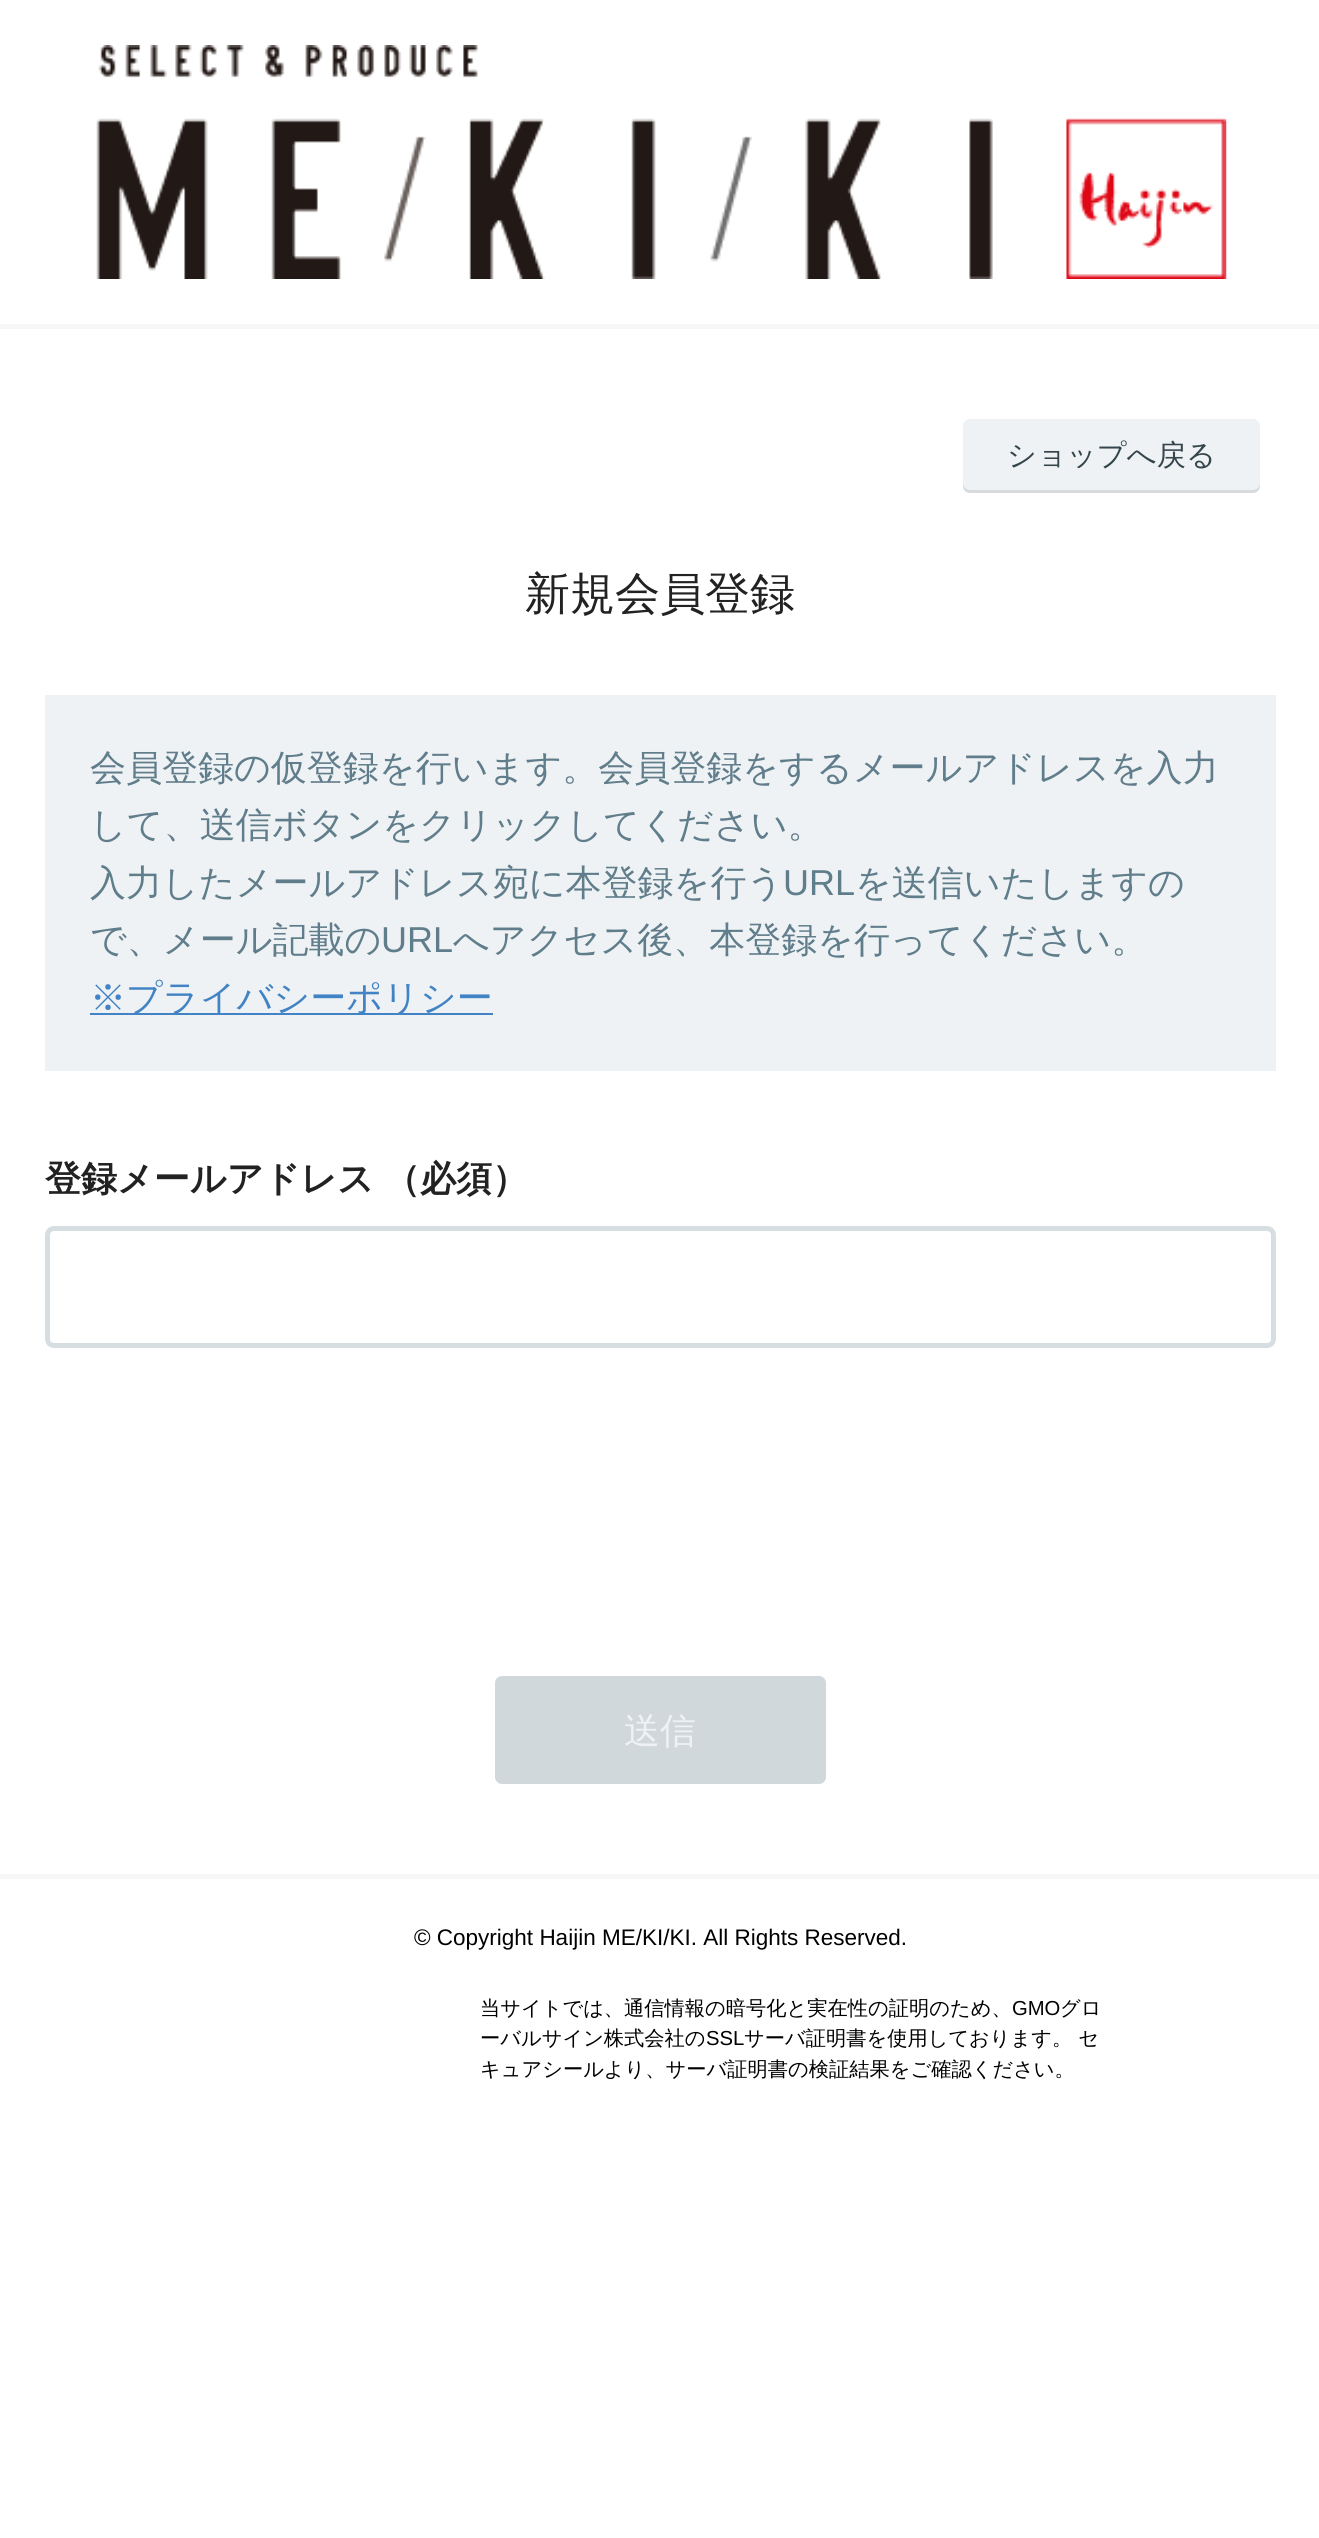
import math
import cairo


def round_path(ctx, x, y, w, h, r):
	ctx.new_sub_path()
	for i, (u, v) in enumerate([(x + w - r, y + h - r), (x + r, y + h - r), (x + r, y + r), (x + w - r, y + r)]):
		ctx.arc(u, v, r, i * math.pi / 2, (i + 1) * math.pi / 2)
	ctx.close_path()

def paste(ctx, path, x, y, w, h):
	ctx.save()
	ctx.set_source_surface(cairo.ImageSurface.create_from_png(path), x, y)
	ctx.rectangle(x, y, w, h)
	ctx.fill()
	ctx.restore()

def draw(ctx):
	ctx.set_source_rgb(1, 1, 1)
	ctx.paint()
	paste(ctx, 'media/1.png', 96, 45, 1131, 234)
	ctx.set_source_rgb(0.965, 0.965, 0.965)
	ctx.rectangle(0, 324, 1319, 5)
	ctx.fill()
	ctx.rectangle(0, 1874, 1319, 5)
	ctx.fill()
	ctx.set_source_rgb(0.937, 0.949, 0.957)
	round_path(ctx, 963, 419, 297, 74, 7)
	ctx.fill()
	ctx.set_source_rgba(0, 0, 0, 0.1)
	ctx.new_path()
	ctx.move_to(963, 483)
	ctx.line_to(963, 486)
	ctx.curve_to(963, 490, 966, 493, 970, 493)
	ctx.line_to(1253, 493)
	ctx.curve_to(1257, 493, 1260, 490, 1260, 486)
	ctx.line_to(1260, 483)
	ctx.curve_to(1260, 487, 1257, 490, 1253, 490)
	ctx.line_to(970, 490)
	ctx.curve_to(966, 490, 963, 487, 963, 483)
	ctx.close_path()
	ctx.fill()
	ctx.select_font_face('WenQuanYi Zen Hei Medium')
	ctx.set_font_size(29.25)
	ctx.set_source_rgb(0.208, 0.271, 0.298)
	ctx.move_to(1007, 465)
	ctx.show_text('ショップへ戻る')
	ctx.set_font_size(45)
	ctx.set_source_rgb(0.133, 0.133, 0.133)
	ctx.move_to(525, 609)
	ctx.show_text('新規会員登録')
	ctx.set_source_rgb(0.937, 0.949, 0.957)
	ctx.rectangle(45, 695, 1231, 376)
	ctx.fill()
	ctx.set_font_size(36)
	ctx.set_source_rgb(0.376, 0.49, 0.545)
	for x, y, s in [
		(90, 780, '会員登録の仮登録を行います。会員登録をするメールアドレスを入力'),
		(90, 837, 'して、送信ボタンをクリックしてください。'),
		(90, 895, '入力したメールアドレス宛に本登録を行う'),
	]:
		ctx.move_to(x, y)
		ctx.show_text(s)
	ctx.select_font_face('Liberation Sans')
	ctx.move_to(783, 895)
	ctx.show_text('URL')
	ctx.select_font_face('WenQuanYi Zen Hei Medium')
	ctx.move_to(855, 895)
	ctx.show_text('を送信いたしますの')
	ctx.move_to(90, 952)
	ctx.show_text('で、メール記載の')
	ctx.select_font_face('Liberation Sans')
	ctx.move_to(381, 952)
	ctx.show_text('URL')
	ctx.select_font_face('WenQuanYi Zen Hei Medium')
	ctx.move_to(453, 952)
	ctx.show_text('へアクセス後、本登録を行ってください。')
	ctx.set_source_rgb(0.255, 0.514, 0.769)
	ctx.rectangle(90, 1013, 403, 2)
	ctx.fill()
	ctx.move_to(90, 1010)
	ctx.show_text('※プライバシーポリシー')
	ctx.select_font_face('WenQuanYi Zen Hei', cairo.FONT_SLANT_NORMAL, cairo.FONT_WEIGHT_BOLD)
	ctx.set_source_rgb(0.133, 0.133, 0.133)
	ctx.move_to(45, 1191)
	ctx.show_text('登録メールアドレス')
	ctx.move_to(384, 1191)
	ctx.show_text('（必須）')
	round_path(ctx, 47.5, 1228.5, 1226, 117, 6.5)
	ctx.set_source_rgb(0.843, 0.871, 0.886)
	ctx.set_line_width(5)
	ctx.stroke()
	ctx.set_source_rgb(0.816, 0.847, 0.863)
	round_path(ctx, 495, 1676, 331, 108, 7)
	ctx.fill()
	ctx.select_font_face('WenQuanYi Zen Hei Medium')
	ctx.set_source_rgb(0.937, 0.949, 0.957)
	ctx.move_to(624, 1743)
	ctx.show_text('送信')
	ctx.select_font_face('Liberation Sans')
	ctx.set_font_size(22.5)
	ctx.set_source_rgb(0, 0, 0)
	ctx.move_to(414, 1945)
	ctx.show_text('© Copyright Haijin ME/KI/KI. All Rights Reserved.')
	ctx.select_font_face('WenQuanYi Zen Hei Medium')
	ctx.set_font_size(20.25)
	ctx.move_to(480, 2015)
	ctx.show_text('当サイトでは、通信情報の暗号化と実在性の証明のため、')
	ctx.select_font_face('Liberation Sans')
	ctx.move_to(1012, 2015)
	ctx.show_text('GMO')
	ctx.select_font_face('WenQuanYi Zen Hei Medium')
	ctx.move_to(1060, 2015)
	ctx.show_text('グロ')
	ctx.move_to(480, 2045)
	ctx.show_text('ーバルサイン株式会社の')
	ctx.select_font_face('Liberation Sans')
	ctx.move_to(706, 2045)
	ctx.show_text('SSL')
	ctx.select_font_face('WenQuanYi Zen Hei Medium')
	ctx.move_to(744, 2045)
	ctx.show_text('サーバ証明書を使用しております。 セ')
	ctx.move_to(480, 2076)
	ctx.show_text('キュアシールより、サーバ証明書の検証結果をご確認ください。')


surface = cairo.ImageSurface(cairo.FORMAT_RGB24, 1319, 2538)
ctx = cairo.Context(surface)
options = cairo.FontOptions()
options.set_hint_metrics(cairo.HINT_METRICS_OFF)
options.set_hint_style(cairo.HINT_STYLE_NONE)
ctx.set_font_options(options)
ctx.set_miter_limit(4)
draw(ctx)
surface.write_to_png('image.png')
